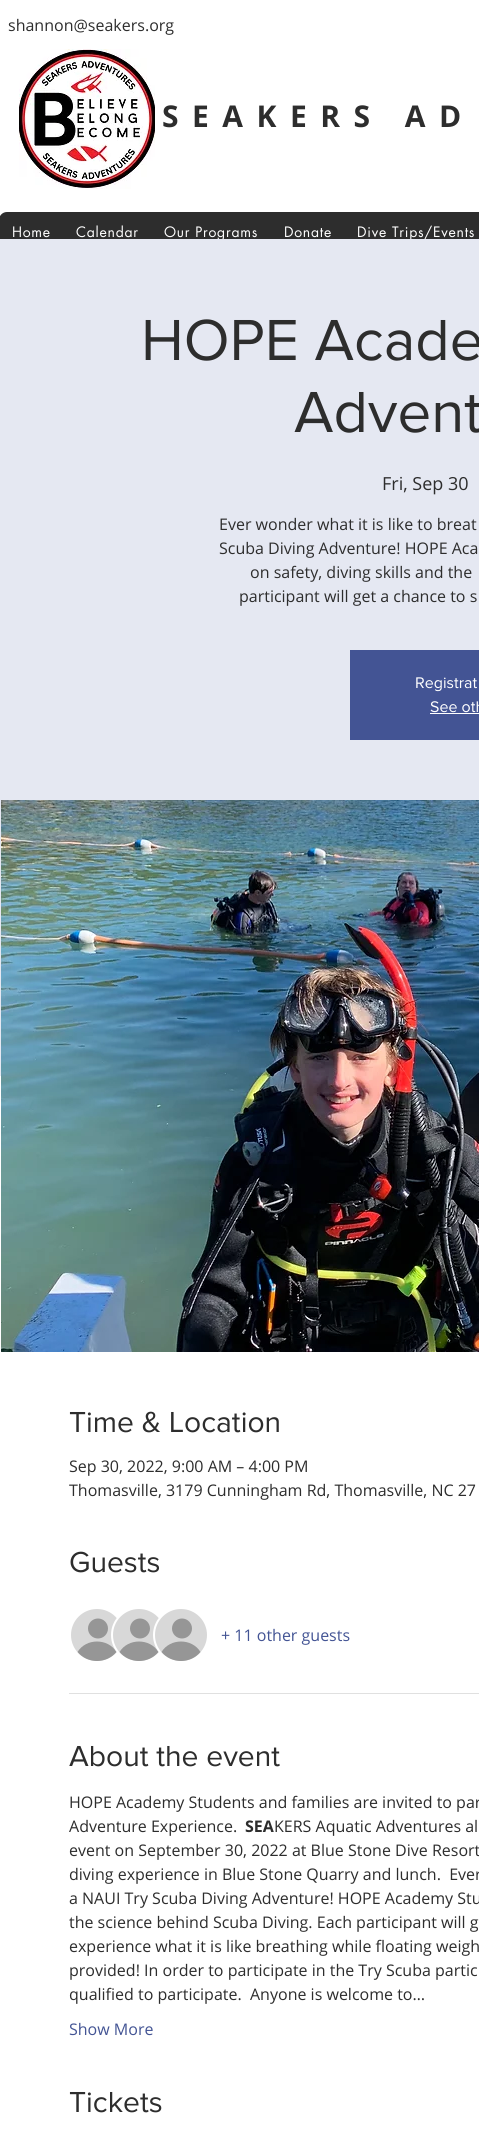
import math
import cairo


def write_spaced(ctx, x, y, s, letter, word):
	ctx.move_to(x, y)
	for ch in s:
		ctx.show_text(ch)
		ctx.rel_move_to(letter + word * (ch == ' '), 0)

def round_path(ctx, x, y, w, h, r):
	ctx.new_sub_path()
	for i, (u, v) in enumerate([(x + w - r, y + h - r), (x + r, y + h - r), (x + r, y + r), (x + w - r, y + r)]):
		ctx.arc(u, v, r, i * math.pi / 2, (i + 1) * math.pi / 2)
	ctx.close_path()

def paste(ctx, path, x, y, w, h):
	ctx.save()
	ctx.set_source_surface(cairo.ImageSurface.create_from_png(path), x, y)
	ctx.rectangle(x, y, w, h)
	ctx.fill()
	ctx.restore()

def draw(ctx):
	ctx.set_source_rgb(1, 1, 1)
	ctx.paint()
	ctx.select_font_face('Open Sans')
	ctx.set_font_size(16)
	ctx.set_source_rgb(0.176, 0.176, 0.176)
	ctx.move_to(8, 31)
	ctx.show_text('shannon@seakers.org')
	paste(ctx, 'media/1.png', 19, 49, 136, 140)
	ctx.select_font_face('Open Sans', cairo.FONT_SLANT_NORMAL, cairo.FONT_WEIGHT_BOLD)
	ctx.set_font_size(30)
	write_spaced(ctx, 162, 127, 'SEAKERS AD', 13.5, 0)
	round_path(ctx, -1, 212, 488, 39, 8)
	ctx.fill()
	ctx.select_font_face('futura')
	ctx.set_font_size(14)
	ctx.set_source_rgb(1, 1, 1)
	for x, y, s in [
		(12, 237, 'Home'),
		(76, 237, 'Calendar'),
		(164, 237, 'Our Programs'),
		(284, 237, 'Donate'),
		(357, 237, 'Dive Trips/Events'),
	]:
		write_spaced(ctx, x, y, s, 0.75, 0)
	ctx.set_source_rgb(0.898, 0.91, 0.949)
	ctx.rectangle(0, 239, 479, 837)
	ctx.fill()
	ctx.select_font_face('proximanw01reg')
	ctx.set_font_size(60)
	ctx.set_source_rgb(0.176, 0.176, 0.176)
	ctx.move_to(141, 360)
	ctx.show_text('HOPE Acade')
	ctx.move_to(294, 432)
	ctx.show_text('Advent')
	ctx.select_font_face('Open Sans')
	ctx.set_font_size(18)
	ctx.move_to(382, 490)
	ctx.show_text('Fri, Sep 30')
	ctx.set_font_size(16)
	for x, y, s in [
		(219, 530, 'Ever wonder what it is like to breat'),
		(219, 554, 'Scuba Diving Adventure! HOPE Aca'),
		(250, 578, 'on safety, diving skills and the'),
		(239, 602, 'participant will get a chance to s'),
	]:
		ctx.move_to(x, y)
		ctx.show_text(s)
	ctx.set_source_rgb(0.263, 0.329, 0.58)
	ctx.rectangle(350, 650, 129, 90)
	ctx.fill()
	ctx.select_font_face('proximanw01reg')
	ctx.set_source_rgb(1, 1, 1)
	ctx.move_to(415, 688)
	ctx.show_text('Registrat')
	ctx.move_to(430, 712)
	ctx.show_text('See oth')
	ctx.rectangle(430, 713, 49, 1)
	ctx.fill()
	paste(ctx, 'media/2.png', 1, 800, 478, 552)
	ctx.set_font_size(30)
	ctx.set_source_rgb(0.176, 0.176, 0.176)
	ctx.move_to(69, 1432)
	ctx.show_text('Time & Location')
	ctx.select_font_face('Open Sans')
	ctx.set_font_size(16)
	ctx.move_to(69, 1472)
	ctx.show_text('Sep 30, 2022, 9:00 AM – 4:00 PM')
	ctx.move_to(69, 1496)
	ctx.show_text('Thomasville, 3179 Cunningham Rd, Thomasville, NC 27')
	ctx.select_font_face('proximanw01reg')
	ctx.set_font_size(30)
	ctx.move_to(69, 1572)
	ctx.show_text('Guests')
	ctx.set_source_rgb(0.847, 0.847, 0.847)
	ctx.new_path()
	ctx.arc(97, 1635, 27, 0, 2 * math.pi)
	ctx.fill_preserve()
	ctx.set_source_rgb(1, 1, 1)
	ctx.stroke()
	ctx.set_source_rgb(0.588, 0.588, 0.588)
	ctx.arc(98, 1628.5, 10, 0, 2 * math.pi)
	ctx.fill()
	ctx.new_path()
	ctx.move_to(116.5, 1652)
	ctx.curve_to(106.5, 1664, 87.5, 1664, 77.5, 1652)
	ctx.curve_to(86, 1638, 108, 1638, 116.5, 1652)
	ctx.close_path()
	ctx.fill()
	ctx.set_source_rgb(0.847, 0.847, 0.847)
	ctx.arc(139, 1635, 27, 0, 2 * math.pi)
	ctx.fill_preserve()
	ctx.set_source_rgb(1, 1, 1)
	ctx.stroke()
	ctx.set_source_rgb(0.588, 0.588, 0.588)
	ctx.arc(140, 1628.5, 10, 0, 2 * math.pi)
	ctx.fill()
	ctx.new_path()
	ctx.move_to(158.5, 1652)
	ctx.curve_to(148.5, 1664, 129.5, 1664, 119.5, 1652)
	ctx.curve_to(128, 1638, 150, 1638, 158.5, 1652)
	ctx.close_path()
	ctx.fill()
	ctx.set_source_rgb(0.847, 0.847, 0.847)
	ctx.arc(181, 1635, 27, 0, 2 * math.pi)
	ctx.fill_preserve()
	ctx.set_source_rgb(1, 1, 1)
	ctx.stroke()
	ctx.set_source_rgb(0.588, 0.588, 0.588)
	ctx.arc(182, 1628.5, 10, 0, 2 * math.pi)
	ctx.fill()
	ctx.new_path()
	ctx.move_to(200.5, 1652)
	ctx.curve_to(190.5, 1664, 171.5, 1664, 161.5, 1652)
	ctx.curve_to(170, 1638, 192, 1638, 200.5, 1652)
	ctx.close_path()
	ctx.fill()
	ctx.select_font_face('Open Sans')
	ctx.set_font_size(16)
	ctx.set_source_rgb(0.263, 0.329, 0.58)
	ctx.move_to(221, 1641)
	ctx.show_text('+ 11 other guests')
	ctx.set_source_rgb(0.878, 0.878, 0.878)
	ctx.rectangle(69, 1693, 410, 1)
	ctx.fill()
	ctx.select_font_face('proximanw01reg')
	ctx.set_font_size(30)
	ctx.set_source_rgb(0.176, 0.176, 0.176)
	ctx.move_to(69, 1766)
	ctx.show_text('About the event')
	ctx.select_font_face('Open Sans')
	ctx.set_font_size(16)
	ctx.move_to(69, 1808)
	ctx.show_text('HOPE Academy Students and families are invited to par')
	ctx.move_to(69, 1832)
	ctx.show_text('Adventure Experience.')
	ctx.select_font_face('Open Sans', cairo.FONT_SLANT_NORMAL, cairo.FONT_WEIGHT_BOLD)
	ctx.move_to(245, 1832)
	ctx.show_text('SEA')
	ctx.select_font_face('Open Sans')
	for x, y, s in [
		(274, 1832, 'KERS Aquatic Adventures al'),
		(69, 1856, 'event on September 30, 2022 at Blue Stone Dive Resort'),
		(69, 1880, 'diving experience in Blue Stone Quarry and lunch.  Ever'),
		(69, 1904, 'a NAUI Try Scuba Diving Adventure! HOPE Academy Stu'),
		(69, 1928, 'the science behind Scuba Diving. Each participant will g'),
		(69, 1952, 'experience what it is like breathing while floating weigh'),
		(69, 1976, 'provided! In order to participate in the Try Scuba partic'),
		(69, 2000, 'qualified to participate.  Anyone is welcome to…'),
	]:
		ctx.move_to(x, y)
		ctx.show_text(s)
	ctx.set_source_rgb(0.263, 0.329, 0.58)
	ctx.move_to(69, 2035)
	ctx.show_text('Show More')
	ctx.select_font_face('proximanw01reg')
	ctx.set_font_size(30)
	ctx.set_source_rgb(0.176, 0.176, 0.176)
	ctx.move_to(69, 2112)
	ctx.show_text('Tickets')


surface = cairo.ImageSurface(cairo.FORMAT_RGB24, 479, 2131)
ctx = cairo.Context(surface)
options = cairo.FontOptions()
options.set_hint_metrics(cairo.HINT_METRICS_OFF)
options.set_hint_style(cairo.HINT_STYLE_NONE)
ctx.set_font_options(options)
ctx.set_miter_limit(4)
draw(ctx)
surface.write_to_png('image.png')
